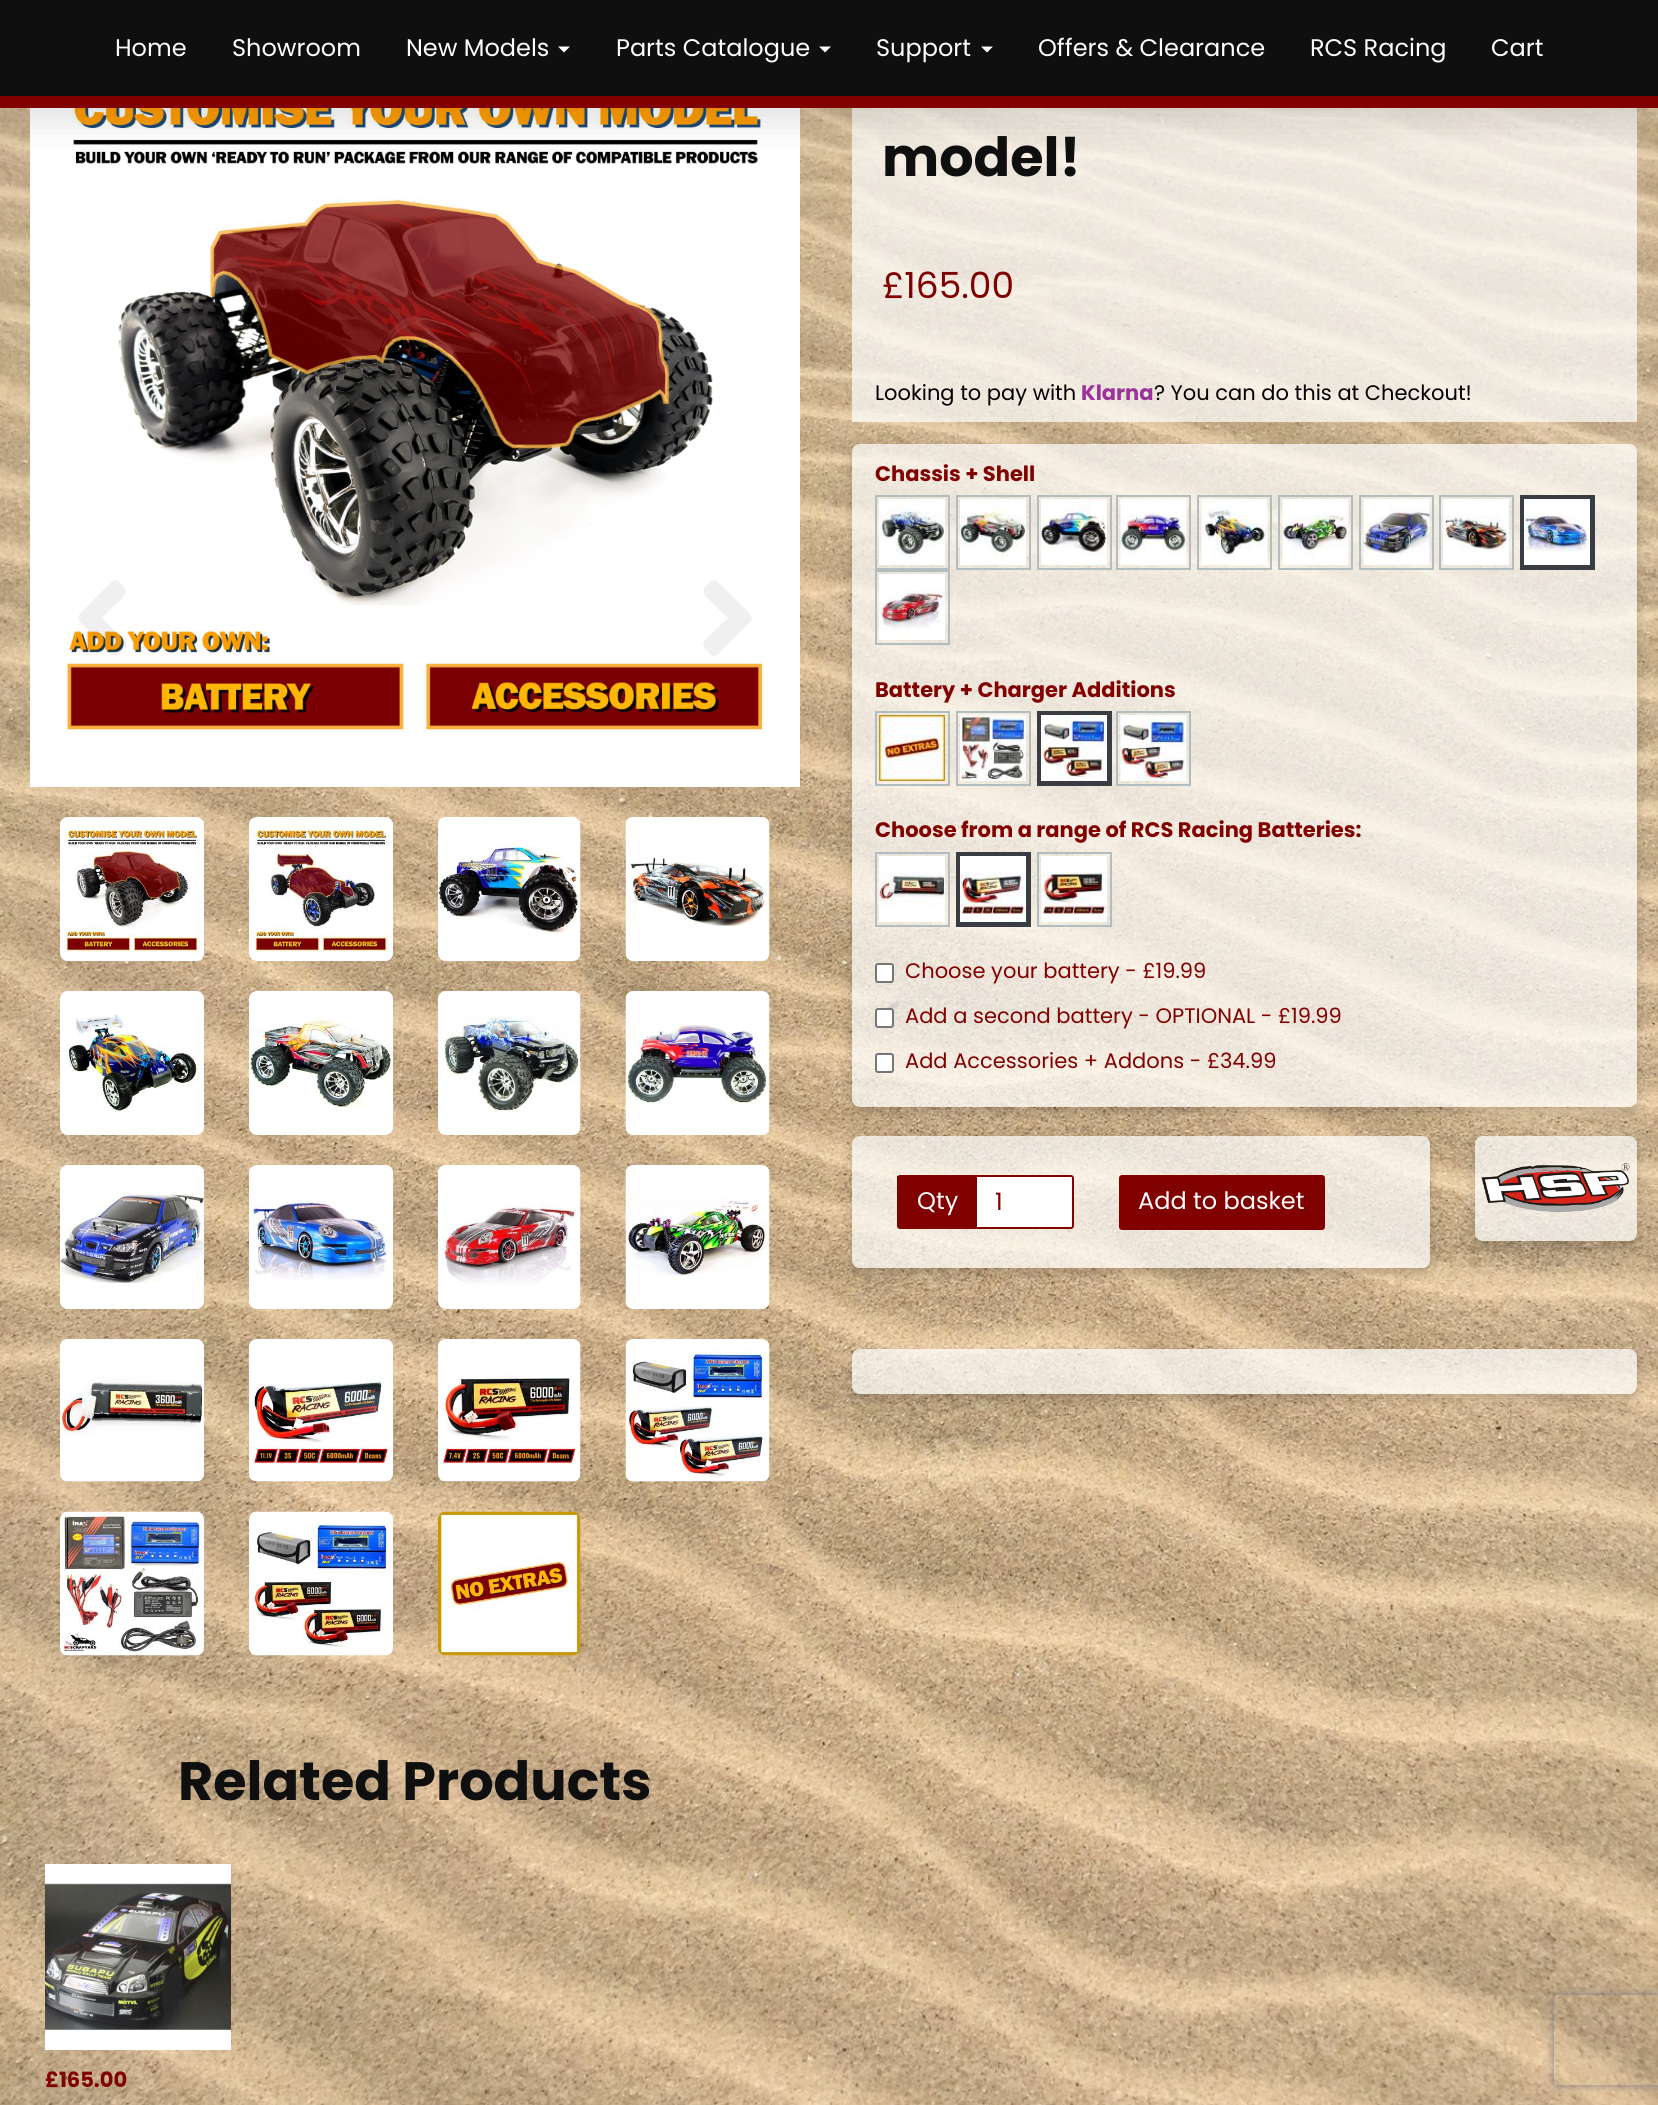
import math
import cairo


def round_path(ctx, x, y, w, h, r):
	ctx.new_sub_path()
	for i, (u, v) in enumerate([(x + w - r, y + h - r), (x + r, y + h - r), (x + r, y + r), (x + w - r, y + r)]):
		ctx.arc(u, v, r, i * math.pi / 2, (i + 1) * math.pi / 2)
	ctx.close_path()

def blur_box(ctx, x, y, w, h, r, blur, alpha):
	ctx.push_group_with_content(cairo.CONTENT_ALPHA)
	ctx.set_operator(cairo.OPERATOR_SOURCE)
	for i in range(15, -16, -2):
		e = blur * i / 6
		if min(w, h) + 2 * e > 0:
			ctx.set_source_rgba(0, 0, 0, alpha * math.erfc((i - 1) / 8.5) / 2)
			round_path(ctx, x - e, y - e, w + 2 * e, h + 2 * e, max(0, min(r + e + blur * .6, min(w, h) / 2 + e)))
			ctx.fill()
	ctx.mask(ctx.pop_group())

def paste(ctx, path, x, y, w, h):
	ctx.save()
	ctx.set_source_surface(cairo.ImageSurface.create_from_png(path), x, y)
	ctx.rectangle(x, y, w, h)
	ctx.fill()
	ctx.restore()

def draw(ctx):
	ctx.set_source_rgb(1, 1, 1)
	ctx.paint()
	paste(ctx, 'media/1.png', 0, 108, 1658, 1997)
	ctx.set_source_rgba(1, 1, 1, 0.7)
	ctx.rectangle(852, 108, 785, 117)
	ctx.fill()
	paste(ctx, 'media/20.png', 30, 108, 770, 679)
	ctx.set_source_rgb(0, 0, 0)
	blur_box(ctx, 0, 12, 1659, 108, 0, 18, 0.13)
	ctx.set_source_rgb(0.059, 0.059, 0.059)
	ctx.rectangle(0, 0, 1658, 96)
	ctx.fill()
	ctx.set_source_rgb(0.506, 0, 0)
	ctx.rectangle(0, 96, 1658, 12)
	ctx.fill()
	ctx.select_font_face('Poppins')
	ctx.set_font_size(24)
	ctx.set_source_rgb(1, 1, 1)
	for x, y, s in [
		(115, 56, 'Home'),
		(232, 56, 'Showroom'),
		(406, 56, 'New Models'),
	]:
		ctx.move_to(x, y)
		ctx.show_text(s)
	ctx.new_path()
	ctx.move_to(558, 46.5)
	ctx.line_to(570, 46.5)
	ctx.line_to(564, 52.5)
	ctx.close_path()
	ctx.fill()
	ctx.move_to(616, 56)
	ctx.show_text('Parts Catalogue')
	ctx.new_path()
	ctx.move_to(819, 46.5)
	ctx.line_to(831, 46.5)
	ctx.line_to(825, 52.5)
	ctx.close_path()
	ctx.fill()
	ctx.move_to(876, 56)
	ctx.show_text('Support')
	ctx.new_path()
	ctx.move_to(981, 46.5)
	ctx.line_to(993, 46.5)
	ctx.line_to(987, 52.5)
	ctx.close_path()
	ctx.fill()
	for x, y, s in [
		(1038, 56, 'Offers & Clearance'),
		(1310, 56, 'RCS Racing'),
		(1491, 56, 'Cart'),
	]:
		ctx.move_to(x, y)
		ctx.show_text(s)
	ctx.select_font_face('Poppins', cairo.FONT_SLANT_NORMAL, cairo.FONT_WEIGHT_BOLD)
	ctx.set_font_size(54)
	ctx.set_source_rgb(0.059, 0.059, 0.059)
	ctx.move_to(882, 176)
	ctx.show_text('model!')
	ctx.set_source_rgba(1, 1, 1, 0.7)
	ctx.rectangle(852, 225, 785, 15)
	ctx.fill()
	ctx.rectangle(852, 240, 785, 93)
	ctx.fill()
	ctx.select_font_face('Poppins')
	ctx.set_font_size(36)
	ctx.set_source_rgb(0.506, 0, 0)
	ctx.move_to(882, 298)
	ctx.show_text('£165.00')
	ctx.set_source_rgba(1, 1, 1, 0.7)
	ctx.rectangle(852, 333, 785, 30)
	ctx.fill()
	ctx.rectangle(852, 363, 785, 59)
	ctx.fill()
	ctx.set_font_size(21)
	ctx.set_source_rgb(0, 0, 0)
	ctx.move_to(875, 400)
	ctx.show_text('Looking to pay with')
	ctx.select_font_face('Poppins', cairo.FONT_SLANT_NORMAL, cairo.FONT_WEIGHT_BOLD)
	ctx.set_source_rgb(0.6, 0.2, 0.6)
	ctx.move_to(1081, 400)
	ctx.show_text('Klarna')
	ctx.select_font_face('Poppins')
	ctx.set_source_rgb(0, 0, 0)
	ctx.move_to(1154, 400)
	ctx.show_text('? You can do this at Checkout!')
	ctx.save()
	ctx.set_fill_rule(cairo.FILL_RULE_EVEN_ODD)
	ctx.new_path()
	ctx.move_to(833, 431)
	ctx.line_to(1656, 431)
	ctx.line_to(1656, 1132)
	ctx.line_to(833, 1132)
	ctx.close_path()
	ctx.move_to(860, 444)
	ctx.line_to(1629, 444)
	ctx.curve_to(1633.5, 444, 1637, 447.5, 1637, 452)
	ctx.line_to(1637, 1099)
	ctx.curve_to(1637, 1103.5, 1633.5, 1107, 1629, 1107)
	ctx.line_to(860, 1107)
	ctx.curve_to(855.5, 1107, 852, 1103.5, 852, 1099)
	ctx.line_to(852, 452)
	ctx.curve_to(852, 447.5, 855.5, 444, 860, 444)
	ctx.close_path()
	ctx.clip()
	ctx.set_source_rgb(0, 0, 0)
	blur_box(ctx, 852, 450, 785, 663, 8, 6, 0.2)
	ctx.restore()
	ctx.set_source_rgba(1, 1, 1, 0.7)
	round_path(ctx, 852, 444, 785, 663, 8)
	ctx.fill()
	ctx.select_font_face('Poppins', cairo.FONT_SLANT_NORMAL, cairo.FONT_WEIGHT_BOLD)
	ctx.set_source_rgb(0.506, 0, 0)
	ctx.move_to(875, 481)
	ctx.show_text('Chassis + Shell')
	ctx.rectangle(876, 496, 73, 73)
	ctx.set_source_rgb(0.698, 0.741, 0.749)
	ctx.stroke()
	paste(ctx, 'media/2.png', 879, 499, 66, 66)
	ctx.rectangle(957, 496, 73, 73)
	ctx.stroke()
	paste(ctx, 'media/3.png', 960, 499, 66, 66)
	ctx.rectangle(1038, 496, 73, 73)
	ctx.stroke()
	paste(ctx, 'media/4.png', 1041, 499, 66, 66)
	ctx.rectangle(1117, 496, 73, 73)
	ctx.stroke()
	paste(ctx, 'media/5.png', 1120, 499, 67, 66)
	ctx.rectangle(1198, 496, 73, 73)
	ctx.stroke()
	paste(ctx, 'media/6.png', 1201, 499, 67, 66)
	ctx.rectangle(1279, 496, 73, 73)
	ctx.stroke()
	paste(ctx, 'media/7.png', 1282, 499, 67, 66)
	ctx.rectangle(1360, 496, 73, 73)
	ctx.stroke()
	paste(ctx, 'media/8.png', 1363, 499, 67, 66)
	ctx.rectangle(1440, 496, 73, 73)
	ctx.stroke()
	paste(ctx, 'media/9.png', 1443, 499, 66, 66)
	ctx.rectangle(1522.5, 497.5, 70, 70)
	ctx.set_source_rgb(0.224, 0.235, 0.263)
	ctx.set_line_width(5)
	ctx.stroke()
	paste(ctx, 'media/10.png', 1524, 499, 66, 66)
	ctx.rectangle(876, 571, 73, 73)
	ctx.set_source_rgb(0.698, 0.741, 0.749)
	ctx.set_line_width(2)
	ctx.stroke()
	paste(ctx, 'media/11.png', 879, 574, 66, 66)
	ctx.set_source_rgb(0.506, 0, 0)
	ctx.move_to(875, 697)
	ctx.show_text('Battery + Charger Additions')
	ctx.rectangle(876, 712, 73, 73)
	ctx.set_source_rgb(0.698, 0.741, 0.749)
	ctx.stroke()
	paste(ctx, 'media/12.png', 879, 715, 66, 66)
	ctx.rectangle(957, 712, 73, 73)
	ctx.stroke()
	paste(ctx, 'media/13.png', 960, 715, 66, 66)
	ctx.rectangle(1039.5, 713.5, 70, 70)
	ctx.set_source_rgb(0.224, 0.235, 0.263)
	ctx.set_line_width(5)
	ctx.stroke()
	paste(ctx, 'media/14.png', 1041, 715, 66, 66)
	ctx.rectangle(1117, 712, 73, 73)
	ctx.set_source_rgb(0.698, 0.741, 0.749)
	ctx.set_line_width(2)
	ctx.stroke()
	paste(ctx, 'media/15.png', 1120, 715, 67, 66)
	ctx.set_source_rgb(0.506, 0, 0)
	ctx.move_to(875, 837)
	ctx.show_text('Choose from a range of RCS Racing Batteries:')
	ctx.rectangle(876, 853, 73, 73)
	ctx.set_source_rgb(0.698, 0.741, 0.749)
	ctx.stroke()
	paste(ctx, 'media/16.png', 879, 856, 66, 66)
	ctx.rectangle(958.5, 854.5, 70, 70)
	ctx.set_source_rgb(0.224, 0.235, 0.263)
	ctx.set_line_width(5)
	ctx.stroke()
	paste(ctx, 'media/17.png', 960, 856, 66, 66)
	ctx.rectangle(1038, 853, 73, 73)
	ctx.set_source_rgb(0.698, 0.741, 0.749)
	ctx.set_line_width(2)
	ctx.stroke()
	paste(ctx, 'media/18.png', 1041, 856, 66, 66)
	ctx.set_source_rgb(1, 1, 1)
	round_path(ctx, 876, 964, 17, 18, 2)
	ctx.fill_preserve()
	ctx.set_source_rgb(0.463, 0.463, 0.463)
	ctx.stroke()
	ctx.select_font_face('Poppins')
	ctx.set_source_rgb(0.506, 0, 0)
	ctx.move_to(905, 978)
	ctx.show_text('Choose your battery - £19.99')
	ctx.set_source_rgb(1, 1, 1)
	round_path(ctx, 876, 1009, 17, 18, 2)
	ctx.fill_preserve()
	ctx.set_source_rgb(0.463, 0.463, 0.463)
	ctx.stroke()
	ctx.set_source_rgb(0.506, 0, 0)
	ctx.move_to(905, 1023)
	ctx.show_text('Add a second battery - OPTIONAL - £19.99')
	ctx.set_source_rgb(1, 1, 1)
	round_path(ctx, 876, 1054, 17, 18, 2)
	ctx.fill_preserve()
	ctx.set_source_rgb(0.463, 0.463, 0.463)
	ctx.stroke()
	ctx.set_source_rgb(0.506, 0, 0)
	ctx.move_to(905, 1068)
	ctx.show_text('Add Accessories + Addons - £34.99')
	ctx.save()
	ctx.set_fill_rule(cairo.FILL_RULE_EVEN_ODD)
	ctx.new_path()
	ctx.move_to(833, 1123)
	ctx.line_to(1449, 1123)
	ctx.line_to(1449, 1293)
	ctx.line_to(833, 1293)
	ctx.close_path()
	ctx.move_to(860, 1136)
	ctx.line_to(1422, 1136)
	ctx.curve_to(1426.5, 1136, 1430, 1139.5, 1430, 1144)
	ctx.line_to(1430, 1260)
	ctx.curve_to(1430, 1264.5, 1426.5, 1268, 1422, 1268)
	ctx.line_to(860, 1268)
	ctx.curve_to(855.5, 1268, 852, 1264.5, 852, 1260)
	ctx.line_to(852, 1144)
	ctx.curve_to(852, 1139.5, 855.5, 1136, 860, 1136)
	ctx.close_path()
	ctx.clip()
	ctx.set_source_rgb(0, 0, 0)
	blur_box(ctx, 852, 1142, 578, 132, 8, 6, 0.2)
	ctx.restore()
	ctx.set_source_rgba(1, 1, 1, 0.7)
	round_path(ctx, 852, 1136, 578, 132, 8)
	ctx.fill()
	ctx.set_source_rgb(0.506, 0, 0)
	ctx.new_path()
	ctx.move_to(900, 1175)
	ctx.line_to(975, 1175)
	ctx.line_to(975, 1229)
	ctx.line_to(900, 1229)
	ctx.curve_to(898.5, 1229, 897, 1227.5, 897, 1226)
	ctx.line_to(897, 1178)
	ctx.curve_to(897, 1176.5, 898.5, 1175, 900, 1175)
	ctx.close_path()
	ctx.fill()
	ctx.rectangle(899, 1175, 1, 1)
	ctx.rectangle(899, 1228, 1, 1)
	ctx.rectangle(897, 1176, 1, 51)
	ctx.fill()
	ctx.set_font_size(24)
	ctx.set_source_rgb(1, 1, 1)
	ctx.move_to(917, 1209)
	ctx.show_text('Qty')
	ctx.new_path()
	ctx.move_to(976, 1176)
	ctx.line_to(1071, 1176)
	ctx.curve_to(1072, 1176, 1073, 1177, 1073, 1178)
	ctx.line_to(1073, 1226)
	ctx.curve_to(1073, 1227, 1072, 1228, 1071, 1228)
	ctx.line_to(976, 1228)
	ctx.close_path()
	ctx.fill_preserve()
	ctx.set_source_rgb(0.506, 0, 0)
	ctx.stroke()
	ctx.move_to(995, 1210)
	ctx.show_text('1')
	round_path(ctx, 1120, 1176, 204, 53, 2)
	ctx.fill_preserve()
	ctx.stroke()
	ctx.set_source_rgb(1, 1, 1)
	ctx.move_to(1138, 1209)
	ctx.show_text('Add to basket')
	ctx.save()
	ctx.set_fill_rule(cairo.FILL_RULE_EVEN_ODD)
	ctx.new_path()
	ctx.move_to(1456, 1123)
	ctx.line_to(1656, 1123)
	ctx.line_to(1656, 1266)
	ctx.line_to(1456, 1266)
	ctx.close_path()
	ctx.move_to(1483, 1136)
	ctx.line_to(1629, 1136)
	ctx.curve_to(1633.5, 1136, 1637, 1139.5, 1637, 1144)
	ctx.line_to(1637, 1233)
	ctx.curve_to(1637, 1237.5, 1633.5, 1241, 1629, 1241)
	ctx.line_to(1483, 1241)
	ctx.curve_to(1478.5, 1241, 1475, 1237.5, 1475, 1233)
	ctx.line_to(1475, 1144)
	ctx.curve_to(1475, 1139.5, 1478.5, 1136, 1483, 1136)
	ctx.close_path()
	ctx.clip()
	ctx.set_source_rgb(0, 0, 0)
	blur_box(ctx, 1475, 1142, 162, 105, 8, 6, 0.2)
	ctx.restore()
	ctx.set_source_rgba(1, 1, 1, 0.7)
	round_path(ctx, 1475, 1136, 162, 105, 8)
	ctx.fill()
	paste(ctx, 'media/19.png', 1481, 1163, 149, 49)
	ctx.save()
	ctx.set_fill_rule(cairo.FILL_RULE_EVEN_ODD)
	ctx.new_path()
	ctx.move_to(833, 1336)
	ctx.line_to(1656, 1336)
	ctx.line_to(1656, 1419)
	ctx.line_to(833, 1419)
	ctx.close_path()
	ctx.move_to(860, 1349)
	ctx.line_to(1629, 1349)
	ctx.curve_to(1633.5, 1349, 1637, 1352.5, 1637, 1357)
	ctx.line_to(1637, 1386)
	ctx.curve_to(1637, 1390.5, 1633.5, 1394, 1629, 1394)
	ctx.line_to(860, 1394)
	ctx.curve_to(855.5, 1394, 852, 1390.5, 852, 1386)
	ctx.line_to(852, 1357)
	ctx.curve_to(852, 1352.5, 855.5, 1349, 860, 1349)
	ctx.close_path()
	ctx.clip()
	ctx.set_source_rgb(0, 0, 0)
	blur_box(ctx, 852, 1355, 785, 45, 8, 6, 0.2)
	ctx.restore()
	round_path(ctx, 852, 1349, 785, 45, 8)
	ctx.fill()
	ctx.set_source_rgba(0.059, 0.059, 0.059, 0.06)
	ctx.new_path()
	ctx.move_to(80, 614)
	ctx.line_to(106, 587)
	ctx.curve_to(109, 585, 113, 578, 118, 581)
	ctx.line_to(123, 586)
	ctx.curve_to(130, 593, 122, 598, 117, 603)
	ctx.line_to(102, 618)
	ctx.line_to(117, 633)
	ctx.curve_to(120, 636, 128, 641, 126, 646)
	ctx.line_to(121, 652)
	ctx.curve_to(115, 659, 112, 655, 106, 649)
	ctx.line_to(85, 627)
	ctx.curve_to(82, 624, 75, 619, 80, 614)
	ctx.close_path()
	ctx.fill()
	ctx.set_source_rgb(0.941, 0.941, 0.941)
	ctx.new_path()
	ctx.move_to(750, 622)
	ctx.line_to(723, 649)
	ctx.curve_to(721, 651, 716, 658, 711, 655)
	ctx.line_to(706, 650)
	ctx.curve_to(699, 643, 707, 638, 712, 633)
	ctx.line_to(728, 618)
	ctx.line_to(712, 603)
	ctx.curve_to(710, 600, 701, 595, 704, 589)
	ctx.line_to(708, 584)
	ctx.curve_to(715, 577, 717, 581, 723, 587)
	ctx.line_to(745, 609)
	ctx.curve_to(748, 612, 755, 617, 750, 622)
	ctx.close_path()
	ctx.fill()
	paste(ctx, 'media/21.png', 60, 817, 144, 144)
	paste(ctx, 'media/22.png', 249, 817, 144, 144)
	paste(ctx, 'media/23.png', 438, 817, 143, 144)
	paste(ctx, 'media/24.png', 625, 817, 145, 144)
	paste(ctx, 'media/25.png', 60, 991, 144, 144)
	paste(ctx, 'media/26.png', 249, 991, 144, 144)
	paste(ctx, 'media/27.png', 438, 991, 143, 144)
	paste(ctx, 'media/28.png', 625, 991, 145, 144)
	paste(ctx, 'media/29.png', 60, 1165, 144, 144)
	paste(ctx, 'media/30.png', 249, 1165, 144, 144)
	paste(ctx, 'media/31.png', 438, 1165, 143, 144)
	paste(ctx, 'media/32.png', 625, 1165, 145, 144)
	paste(ctx, 'media/33.png', 60, 1339, 144, 143)
	paste(ctx, 'media/34.png', 249, 1339, 144, 143)
	paste(ctx, 'media/35.png', 438, 1339, 143, 143)
	paste(ctx, 'media/36.png', 625, 1339, 145, 143)
	paste(ctx, 'media/37.png', 60, 1511, 144, 145)
	paste(ctx, 'media/38.png', 249, 1511, 144, 145)
	paste(ctx, 'media/39.png', 438, 1511, 143, 145)
	ctx.select_font_face('Poppins', cairo.FONT_SLANT_NORMAL, cairo.FONT_WEIGHT_BOLD)
	ctx.set_font_size(54)
	ctx.set_source_rgb(0.059, 0.059, 0.059)
	ctx.move_to(178, 1800)
	ctx.show_text('Related Products')
	paste(ctx, 'media/40.png', 45, 1864, 186, 186)
	ctx.set_font_size(21)
	ctx.set_source_rgb(0.506, 0, 0)
	ctx.move_to(45, 2087)
	ctx.show_text('£165.00')
	ctx.save()
	ctx.set_fill_rule(cairo.FILL_RULE_EVEN_ODD)
	ctx.new_path()
	ctx.move_to(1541, 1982)
	ctx.line_to(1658, 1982)
	ctx.line_to(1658, 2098)
	ctx.line_to(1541, 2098)
	ctx.close_path()
	ctx.move_to(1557, 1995)
	ctx.line_to(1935, 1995)
	ctx.curve_to(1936.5, 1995, 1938, 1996.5, 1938, 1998)
	ctx.line_to(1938, 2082)
	ctx.curve_to(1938, 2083.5, 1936.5, 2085, 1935, 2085)
	ctx.line_to(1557, 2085)
	ctx.curve_to(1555.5, 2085, 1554, 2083.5, 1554, 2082)
	ctx.line_to(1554, 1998)
	ctx.curve_to(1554, 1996.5, 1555.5, 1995, 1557, 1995)
	ctx.close_path()
	ctx.clip()
	ctx.set_source_rgb(0.502, 0.502, 0.502)
	blur_box(ctx, 1554, 1995, 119, 90, 3, 4, 1)
	ctx.restore()


surface = cairo.ImageSurface(cairo.FORMAT_RGB24, 1658, 2105)
ctx = cairo.Context(surface)
options = cairo.FontOptions()
options.set_hint_metrics(cairo.HINT_METRICS_OFF)
options.set_hint_style(cairo.HINT_STYLE_NONE)
ctx.set_font_options(options)
ctx.set_miter_limit(4)
draw(ctx)
surface.write_to_png('image.png')
